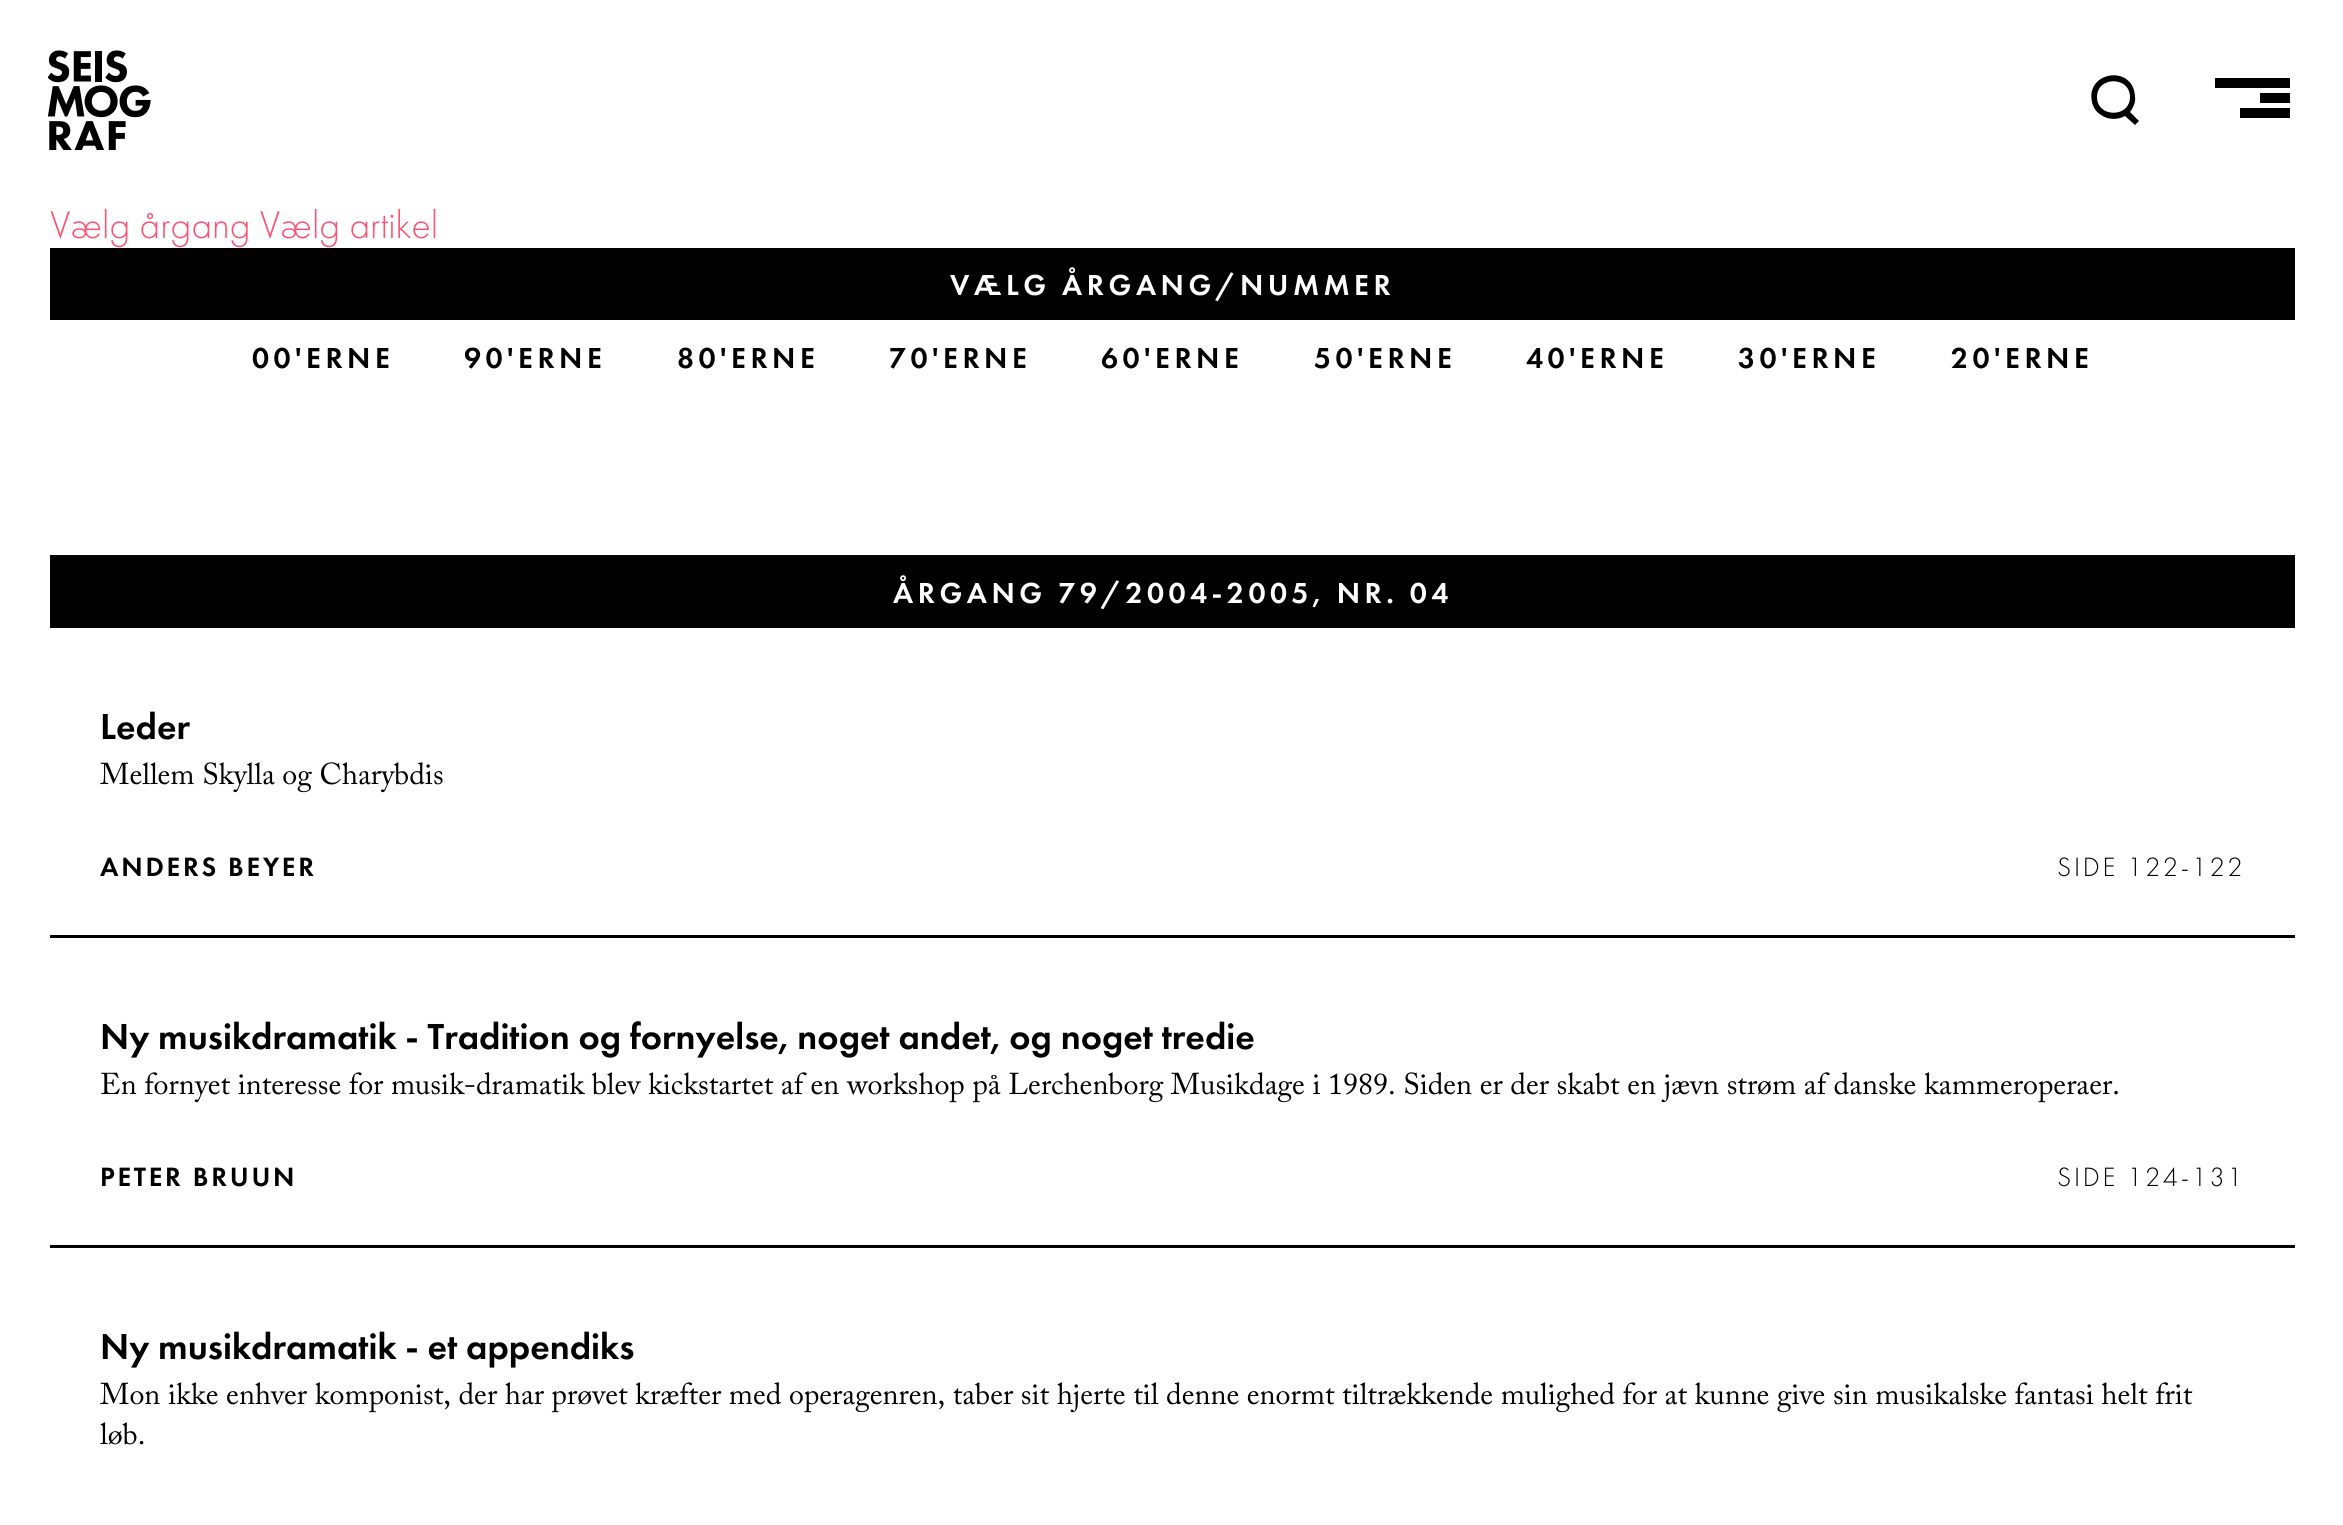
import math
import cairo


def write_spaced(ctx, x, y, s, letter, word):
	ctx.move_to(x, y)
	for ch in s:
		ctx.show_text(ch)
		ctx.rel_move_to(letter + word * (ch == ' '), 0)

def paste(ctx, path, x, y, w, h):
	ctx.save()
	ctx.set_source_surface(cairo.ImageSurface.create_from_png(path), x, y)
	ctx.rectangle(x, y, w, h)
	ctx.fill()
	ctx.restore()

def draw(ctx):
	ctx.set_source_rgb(1, 1, 1)
	ctx.paint()
	paste(ctx, 'media/1.png', 48, 50, 103, 100)
	ctx.set_source_rgb(0, 0, 0)
	ctx.new_path()
	ctx.move_to(2139, 121)
	ctx.line_to(2130, 112)
	ctx.curve_to(2133, 108, 2136, 102, 2135, 97)
	ctx.curve_to(2134, 64, 2085, 71, 2092, 102)
	ctx.curve_to(2093, 107, 2096, 112, 2101, 115)
	ctx.curve_to(2108, 120, 2118, 120, 2125, 116)
	ctx.line_to(2135, 125)
	ctx.close_path()
	ctx.move_to(2097, 97)
	ctx.curve_to(2097, 76, 2130, 76, 2130, 97)
	ctx.curve_to(2130, 118, 2097, 118, 2097, 97)
	ctx.close_path()
	ctx.fill()
	ctx.rectangle(2215, 78, 75, 10)
	ctx.rectangle(2260, 93, 30, 10)
	ctx.rectangle(2240, 108, 50, 10)
	ctx.fill()
	ctx.select_font_face('Futura PT Light')
	ctx.set_font_size(40)
	ctx.set_source_rgb(1, 0.318, 0.443)
	ctx.move_to(50, 238)
	ctx.show_text('Vælg årgang Vælg artikel')
	ctx.set_source_rgb(0, 0, 0)
	ctx.rectangle(50, 248, 2245, 72)
	ctx.fill()
	ctx.select_font_face('Futura PT Medium')
	ctx.set_font_size(30)
	ctx.set_source_rgb(1, 1, 1)
	write_spaced(ctx, 950, 295, 'VÆLG ÅRGANG/NUMMER', 4.5, 0)
	ctx.set_source_rgb(0, 0, 0)
	for x, y, s in [
		(252, 368, '00\'ERNE'),
		(464, 368, '90\'ERNE'),
		(677, 368, '80\'ERNE'),
		(889, 368, '70\'ERNE'),
		(1101, 368, '60\'ERNE'),
		(1314, 368, '50\'ERNE'),
		(1526, 368, '40\'ERNE'),
		(1738, 368, '30\'ERNE'),
		(1951, 368, '20\'ERNE'),
	]:
		write_spaced(ctx, x, y, s, 4.5, 0)
	ctx.rectangle(50, 555, 2245, 73)
	ctx.fill()
	ctx.set_source_rgb(1, 1, 1)
	write_spaced(ctx, 893, 603, 'ÅRGANG 79/2004-2005, NR. 04', 4.5, 0)
	ctx.set_source_rgb(0, 0, 0)
	ctx.rectangle(50, 935, 2245, 3)
	ctx.fill()
	ctx.set_font_size(37.5)
	ctx.move_to(100, 739)
	ctx.show_text('Leder')
	ctx.select_font_face('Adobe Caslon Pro')
	ctx.set_font_size(30)
	ctx.move_to(100, 784)
	ctx.show_text('Mellem Skylla og Charybdis')
	ctx.select_font_face('Futura PT Medium')
	ctx.set_font_size(27.5)
	write_spaced(ctx, 100, 876, 'ANDERS BEYER', 2.75, 0)
	ctx.select_font_face('Futura PT Light')
	write_spaced(ctx, 2057, 876, 'SIDE 122-122', 2.75, 0)
	ctx.rectangle(50, 1245, 2245, 3)
	ctx.fill()
	ctx.select_font_face('Futura PT Medium')
	ctx.set_font_size(37.5)
	ctx.move_to(100, 1049)
	ctx.show_text('Ny musikdramatik - Tradition og fornyelse, noget andet, og noget tredie')
	ctx.select_font_face('Adobe Caslon Pro')
	ctx.set_font_size(30)
	ctx.move_to(100, 1094)
	ctx.show_text('En fornyet interesse for musik-dramatik blev kickstartet af en workshop på Lerchenborg Musikdage i 1989. Siden er der skabt en jævn strøm af danske kammeroperaer.')
	ctx.select_font_face('Futura PT Medium')
	ctx.set_font_size(27.5)
	write_spaced(ctx, 100, 1186, 'PETER BRUUN', 2.75, 0)
	ctx.select_font_face('Futura PT Light')
	write_spaced(ctx, 2057, 1186, 'SIDE 124-131', 2.75, 0)
	ctx.select_font_face('Futura PT Medium')
	ctx.set_font_size(37.5)
	ctx.move_to(100, 1359)
	ctx.show_text('Ny musikdramatik - et appendiks')
	ctx.select_font_face('Adobe Caslon Pro')
	ctx.set_font_size(30)
	ctx.move_to(100, 1404)
	ctx.show_text('Mon ikke enhver komponist, der har prøvet kræfter med operagenren, taber sit hjerte til denne enormt tiltrækkende mulighed for at kunne give sin musikalske fantasi helt frit')
	ctx.move_to(100, 1444)
	ctx.show_text('løb.')


surface = cairo.ImageSurface(cairo.FORMAT_RGB24, 2343, 1525)
ctx = cairo.Context(surface)
options = cairo.FontOptions()
options.set_hint_metrics(cairo.HINT_METRICS_OFF)
options.set_hint_style(cairo.HINT_STYLE_NONE)
ctx.set_font_options(options)
ctx.set_miter_limit(4)
draw(ctx)
surface.write_to_png('image.png')
